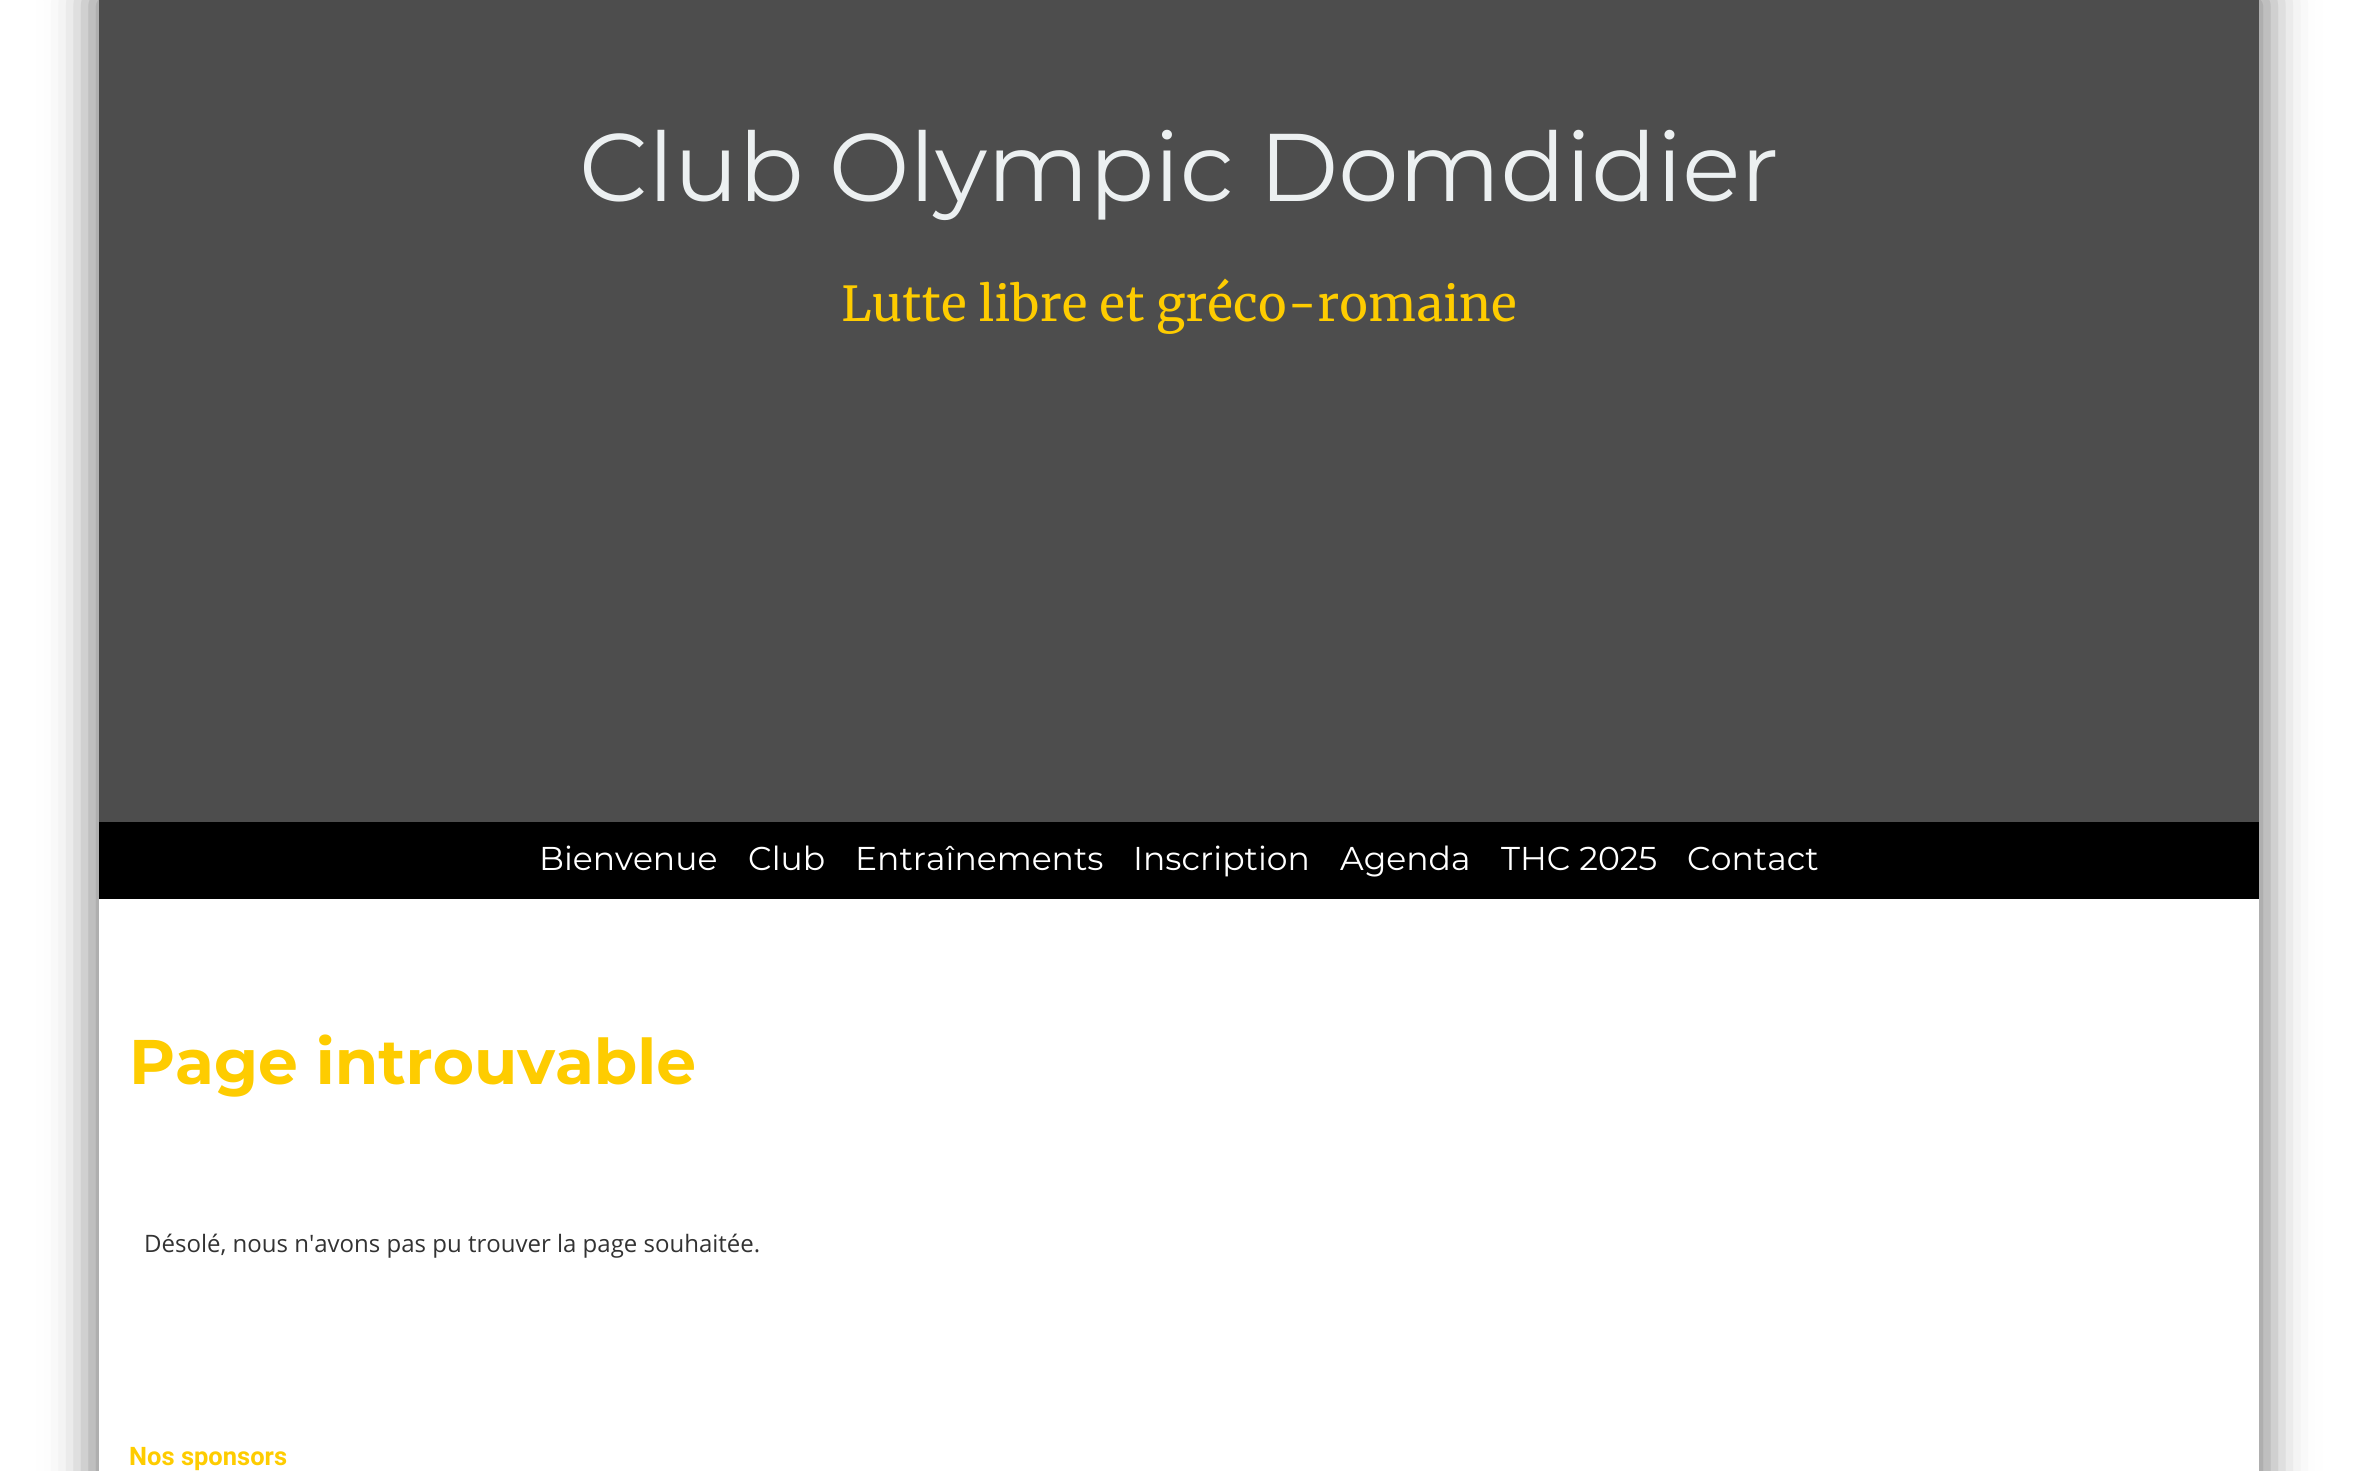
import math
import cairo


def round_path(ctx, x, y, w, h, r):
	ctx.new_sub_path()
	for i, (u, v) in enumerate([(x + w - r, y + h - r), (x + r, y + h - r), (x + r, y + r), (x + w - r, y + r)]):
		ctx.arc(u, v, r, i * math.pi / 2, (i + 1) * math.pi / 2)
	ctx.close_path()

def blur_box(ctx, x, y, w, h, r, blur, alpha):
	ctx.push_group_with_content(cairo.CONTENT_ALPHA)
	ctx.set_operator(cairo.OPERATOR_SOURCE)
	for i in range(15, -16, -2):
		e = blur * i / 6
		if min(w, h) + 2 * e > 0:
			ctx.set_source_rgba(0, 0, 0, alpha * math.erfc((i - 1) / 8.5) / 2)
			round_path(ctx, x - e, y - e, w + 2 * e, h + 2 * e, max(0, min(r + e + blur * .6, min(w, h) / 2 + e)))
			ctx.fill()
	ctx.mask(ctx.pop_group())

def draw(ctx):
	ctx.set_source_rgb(1, 1, 1)
	ctx.paint()
	ctx.set_source_rgb(0.302, 0.302, 0.302)
	ctx.rectangle(99, 0, 2160, 822)
	ctx.fill()
	ctx.save()
	ctx.set_fill_rule(cairo.FILL_RULE_EVEN_ODD)
	ctx.new_path()
	ctx.move_to(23, 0)
	ctx.line_to(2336, 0)
	ctx.line_to(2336, 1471)
	ctx.line_to(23, 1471)
	ctx.close_path()
	ctx.move_to(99, 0)
	ctx.line_to(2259, 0)
	ctx.line_to(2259, 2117)
	ctx.line_to(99, 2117)
	ctx.close_path()
	ctx.clip()
	ctx.set_source_rgb(0, 0, 0)
	blur_box(ctx, 92, -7, 2175, 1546, 0, 22.5, 0.5)
	ctx.restore()
	ctx.select_font_face('Montserrat')
	ctx.set_font_size(96)
	ctx.set_source_rgb(0.925, 0.941, 0.945)
	ctx.move_to(579, 201)
	ctx.show_text('Club Olympic Domdidier')
	ctx.select_font_face('Merriweather')
	ctx.set_font_size(48)
	ctx.set_source_rgb(0.996, 0.8, 0)
	ctx.move_to(841, 321)
	ctx.show_text('Lutte libre et gréco-romaine')
	ctx.set_source_rgb(0, 0, 0)
	ctx.rectangle(99, 822, 2160, 77)
	ctx.fill()
	ctx.select_font_face('Montserrat')
	ctx.set_font_size(33)
	ctx.set_source_rgb(1, 1, 1)
	for x, y, s in [
		(539, 870, 'Bienvenue'),
		(748, 870, 'Club'),
		(855, 870, 'Entraînements'),
		(1133, 870, 'Inscription'),
		(1340, 870, 'Agenda'),
		(1501, 870, 'THC 2025'),
		(1687, 870, 'Contact'),
	]:
		ctx.move_to(x, y)
		ctx.show_text(s)
	ctx.select_font_face('Montserrat', cairo.FONT_SLANT_NORMAL, cairo.FONT_WEIGHT_BOLD)
	ctx.set_font_size(63)
	ctx.set_source_rgb(0.996, 0.8, 0)
	ctx.move_to(129, 1084)
	ctx.show_text('Page introuvable')
	ctx.select_font_face('Open Sans')
	ctx.set_font_size(24)
	ctx.set_source_rgb(0.2, 0.2, 0.2)
	ctx.move_to(144, 1252)
	ctx.show_text('Désolé, nous n\'avons pas pu trouver la page souhaitée.')
	ctx.select_font_face('Roboto', cairo.FONT_SLANT_NORMAL, cairo.FONT_WEIGHT_BOLD)
	ctx.set_font_size(25.5)
	ctx.set_source_rgb(0.996, 0.8, 0)
	ctx.move_to(129, 1465)
	ctx.show_text('Nos sponsors')


surface = cairo.ImageSurface(cairo.FORMAT_RGB24, 2358, 1471)
ctx = cairo.Context(surface)
options = cairo.FontOptions()
options.set_hint_metrics(cairo.HINT_METRICS_OFF)
options.set_hint_style(cairo.HINT_STYLE_NONE)
ctx.set_font_options(options)
ctx.set_miter_limit(4)
draw(ctx)
surface.write_to_png('image.png')
